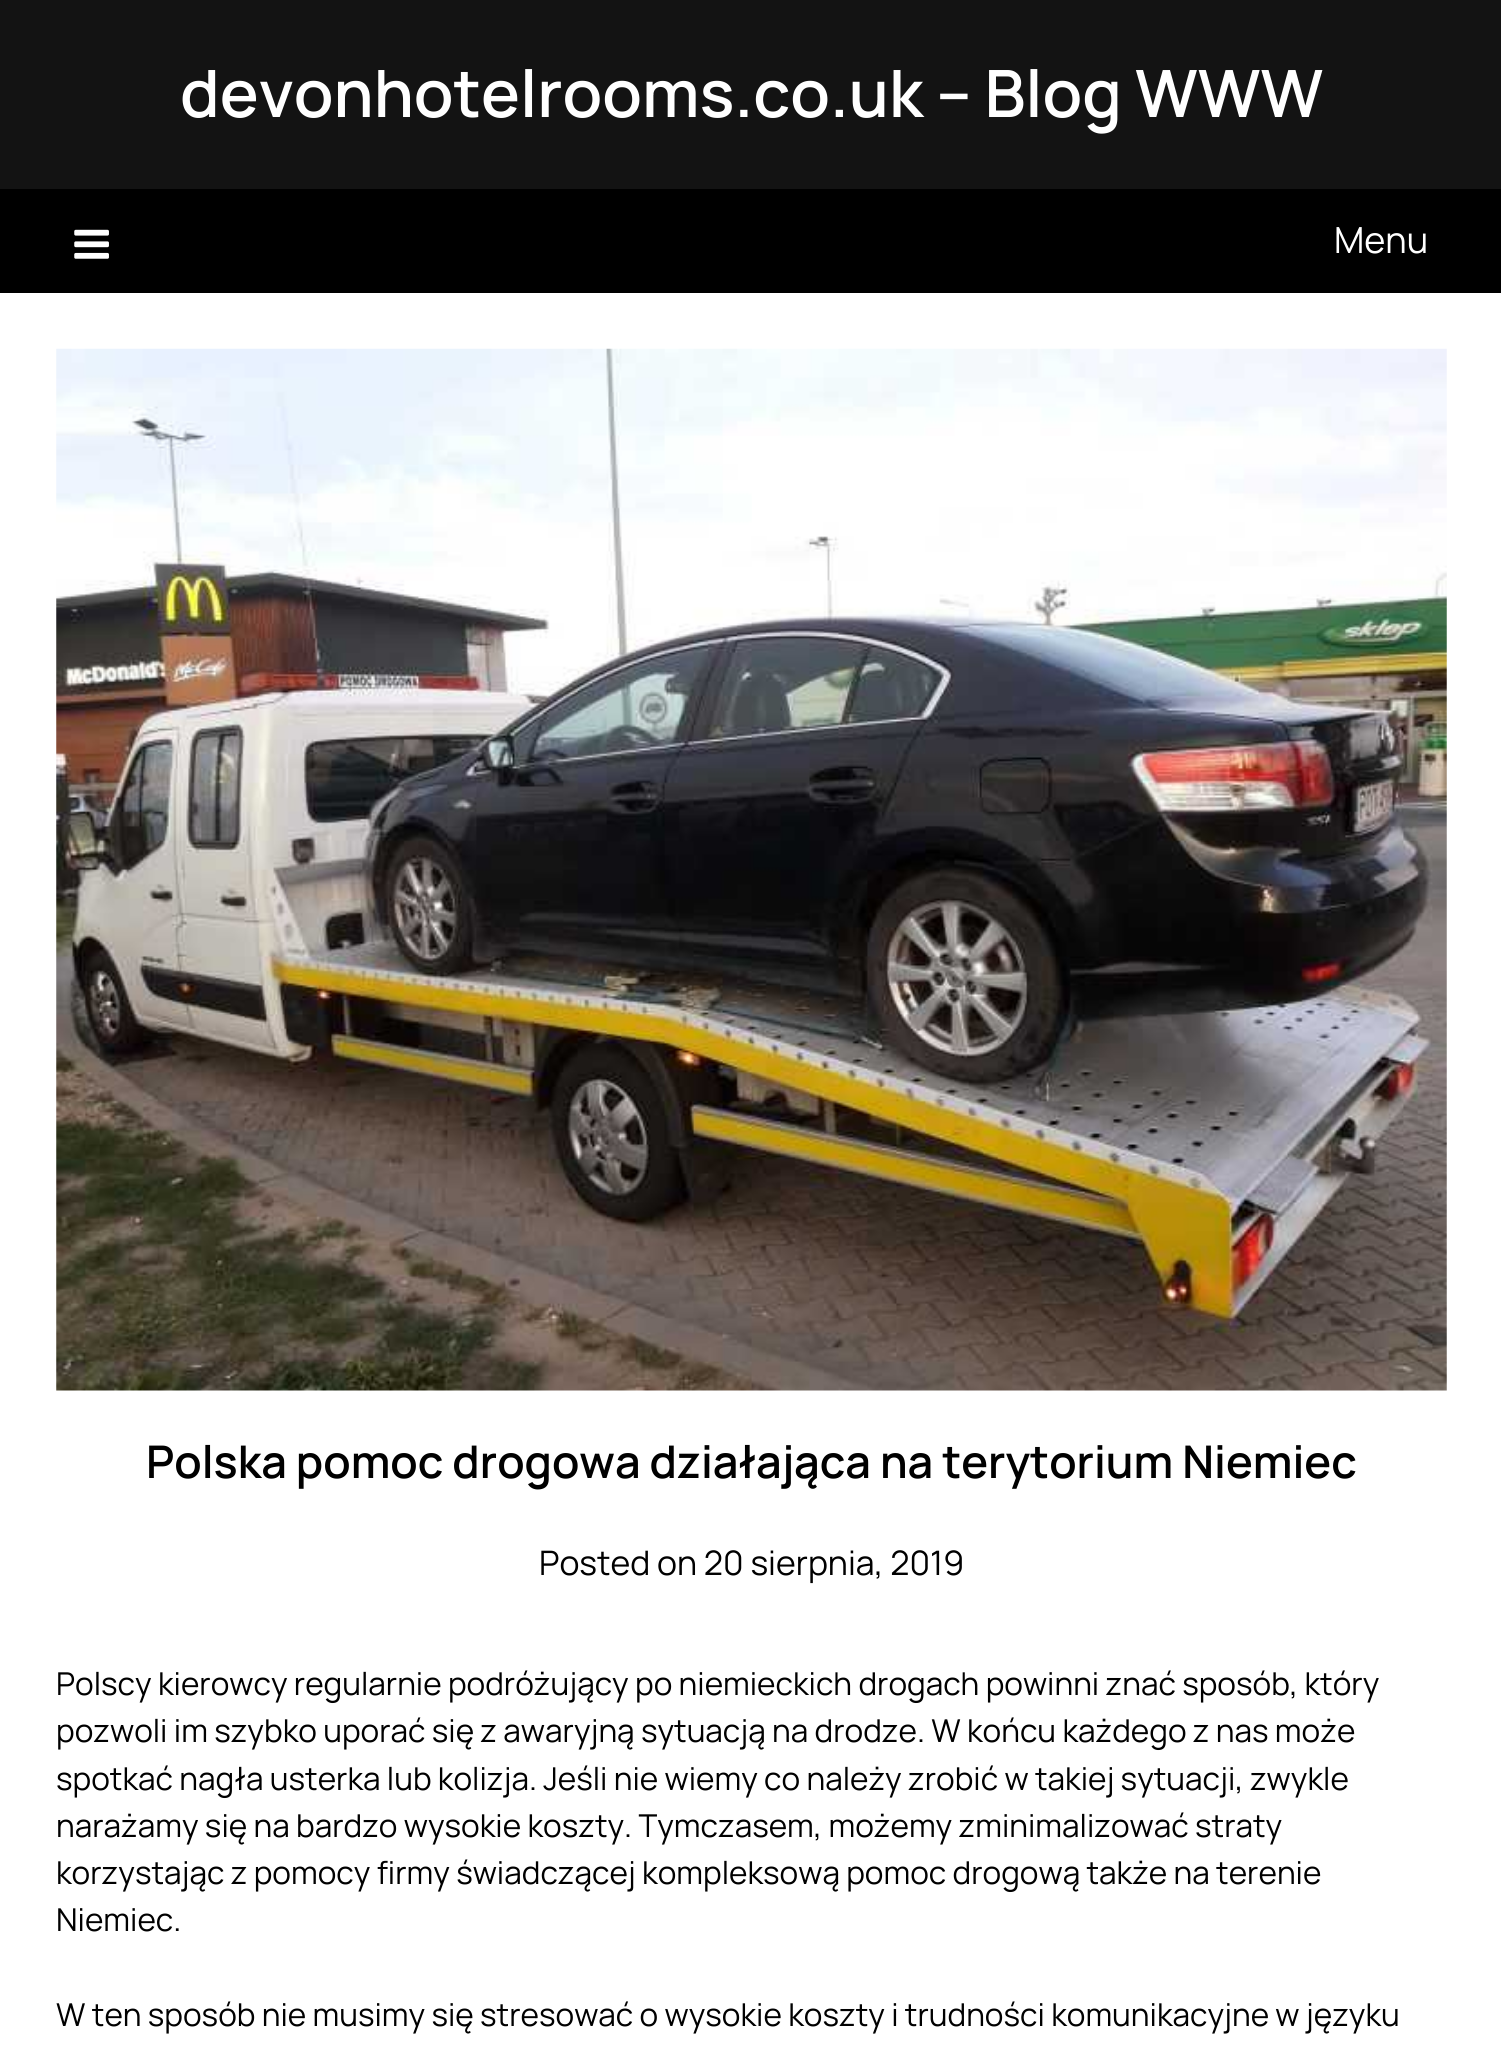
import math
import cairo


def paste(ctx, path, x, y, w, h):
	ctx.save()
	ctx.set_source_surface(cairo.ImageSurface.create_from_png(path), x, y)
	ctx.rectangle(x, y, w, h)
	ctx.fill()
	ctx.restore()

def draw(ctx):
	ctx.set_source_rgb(1, 1, 1)
	ctx.paint()
	ctx.set_source_rgb(0.075, 0.075, 0.075)
	ctx.rectangle(0, 0, 1501, 189)
	ctx.fill()
	ctx.select_font_face('Manrope SemiBold')
	ctx.set_font_size(65.25)
	ctx.set_source_rgb(1, 1, 1)
	ctx.move_to(180, 117)
	ctx.show_text('devonhotelrooms.co.uk – Blog WWW')
	ctx.set_source_rgb(0, 0, 0)
	ctx.rectangle(0, 189, 1501, 104)
	ctx.fill()
	paste(ctx, 'media/1.png', 74, 229, 35, 30)
	ctx.select_font_face('Manrope')
	ctx.set_font_size(36)
	ctx.set_source_rgb(1, 1, 1)
	ctx.move_to(1334, 253)
	ctx.show_text('Menu')
	paste(ctx, 'media/2.png', 56, 348, 1391, 1043)
	ctx.select_font_face('Manrope SemiBold')
	ctx.set_font_size(45)
	ctx.set_source_rgb(0, 0, 0)
	ctx.move_to(146, 1478)
	ctx.show_text('Polska pomoc drogowa działająca na terytorium Niemiec')
	ctx.select_font_face('Manrope')
	ctx.set_font_size(33.75)
	ctx.move_to(539, 1575)
	ctx.show_text('Posted on 20 sierpnia, 2019')
	ctx.set_font_size(31.5)
	for x, y, s in [
		(56, 1695, 'Polscy kierowcy regularnie podróżujący po niemieckich drogach powinni znać sposób, który'),
		(56, 1742, 'pozwoli im szybko uporać się z awaryjną sytuacją na drodze. W końcu każdego z nas może'),
		(56, 1790, 'spotkać nagła usterka lub kolizja. Jeśli nie wiemy co należy zrobić w takiej sytuacji, zwykle'),
		(56, 1837, 'narażamy się na bardzo wysokie koszty. Tymczasem, możemy zminimalizować straty'),
		(56, 1884, 'korzystając z pomocy firmy świadczącej kompleksową pomoc drogową także na terenie'),
		(56, 1931, 'Niemiec.'),
		(56, 2026, 'W ten sposób nie musimy się stresować o wysokie koszty i trudności komunikacyjne w języku'),
	]:
		ctx.move_to(x, y)
		ctx.show_text(s)


surface = cairo.ImageSurface(cairo.FORMAT_RGB24, 1501, 2062)
ctx = cairo.Context(surface)
options = cairo.FontOptions()
options.set_hint_metrics(cairo.HINT_METRICS_OFF)
options.set_hint_style(cairo.HINT_STYLE_NONE)
ctx.set_font_options(options)
ctx.set_miter_limit(4)
draw(ctx)
surface.write_to_png('image.png')
